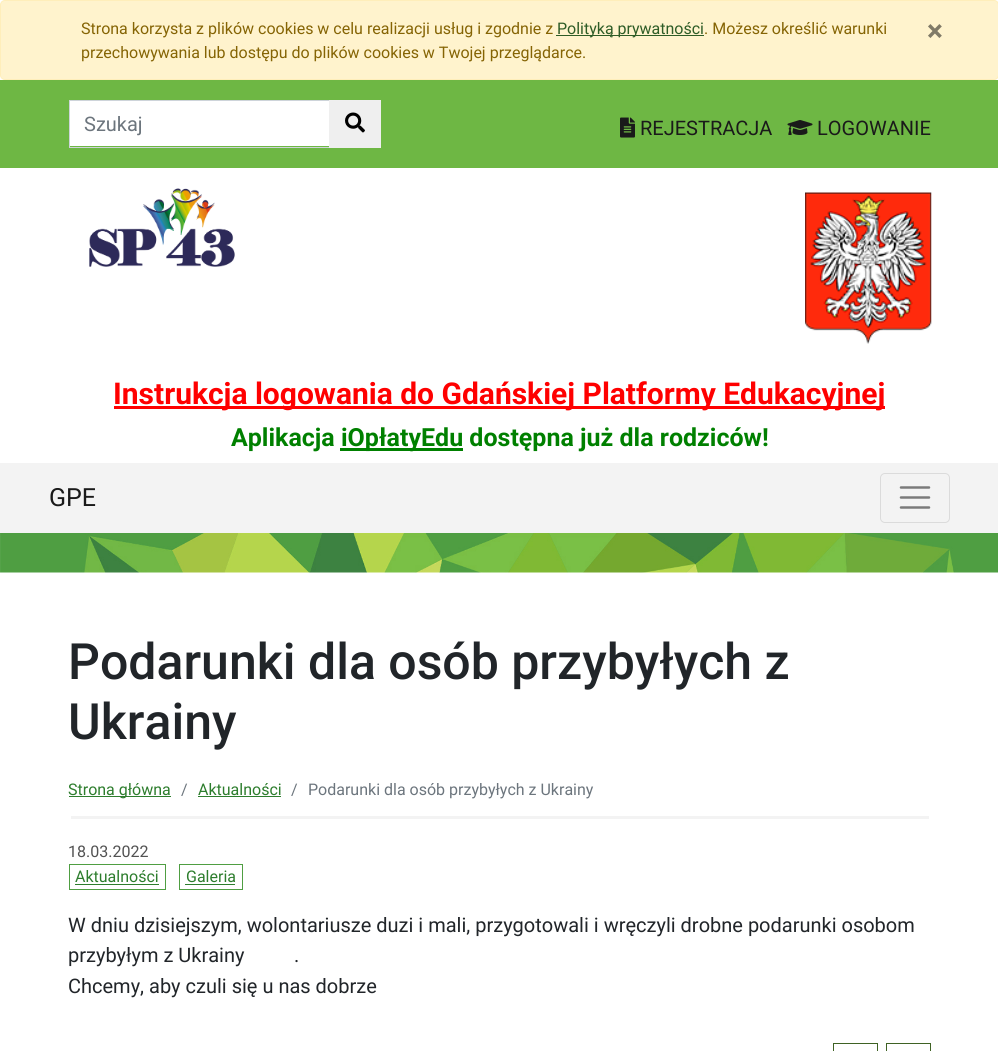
import math
import cairo


def round_path(ctx, x, y, w, h, r):
	ctx.new_sub_path()
	for i, (u, v) in enumerate([(x + w - r, y + h - r), (x + r, y + h - r), (x + r, y + r), (x + w - r, y + r)]):
		ctx.arc(u, v, r, i * math.pi / 2, (i + 1) * math.pi / 2)
	ctx.close_path()

def paste(ctx, path, x, y, w, h):
	ctx.save()
	ctx.set_source_surface(cairo.ImageSurface.create_from_png(path), x, y)
	ctx.rectangle(x, y, w, h)
	ctx.fill()
	ctx.restore()

def draw(ctx):
	ctx.set_source_rgb(1, 1, 1)
	ctx.paint()
	ctx.set_source_rgb(1, 0.953, 0.804)
	round_path(ctx, 0.5, 0.5, 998, 79, 4.5)
	ctx.fill_preserve()
	ctx.set_source_rgb(1, 0.933, 0.729)
	ctx.set_line_width(1)
	ctx.stroke()
	ctx.select_font_face('Roboto')
	ctx.set_font_size(16)
	ctx.set_source_rgb(0.522, 0.392, 0.016)
	ctx.move_to(81, 34)
	ctx.show_text('Strona korzysta z plików cookies w celu realizacji usług i zgodnie z')
	ctx.set_source_rgb(0.18, 0.361, 0.149)
	ctx.rectangle(556, 35, 148, 1)
	ctx.fill()
	ctx.move_to(557, 34)
	ctx.show_text('Polityką prywatności')
	ctx.set_source_rgb(0.522, 0.392, 0.016)
	ctx.move_to(704, 34)
	ctx.show_text('. Możesz określić warunki')
	ctx.select_font_face('Roboto', cairo.FONT_SLANT_NORMAL, cairo.FONT_WEIGHT_BOLD)
	ctx.set_font_size(30)
	ctx.set_source_rgb(0.502, 0.478, 0.404)
	ctx.move_to(927, 41)
	ctx.show_text('×')
	ctx.select_font_face('Roboto')
	ctx.set_font_size(16)
	ctx.set_source_rgb(0.522, 0.392, 0.016)
	ctx.move_to(81, 58)
	ctx.show_text('przechowywania lub dostępu do plików cookies w Twojej przeglądarce.')
	ctx.set_source_rgb(0.431, 0.718, 0.267)
	ctx.rectangle(0, 80, 998, 88)
	ctx.fill()
	ctx.set_source_rgb(1, 1, 1)
	ctx.rectangle(70, 101, 259, 45)
	ctx.fill()
	ctx.rectangle(69.5, 100.5, 260, 47)
	ctx.set_source_rgb(0.808, 0.831, 0.855)
	ctx.stroke()
	ctx.set_font_size(20)
	ctx.set_source_rgb(0.424, 0.459, 0.49)
	ctx.move_to(84, 131)
	ctx.show_text('Szukaj')
	ctx.set_source_rgb(0.937, 0.937, 0.937)
	ctx.rectangle(329, 100, 52, 48)
	ctx.fill()
	paste(ctx, 'media/1.png', 345, 112, 20, 21)
	paste(ctx, 'media/2.png', 620, 117, 15, 21)
	ctx.set_source_rgb(0.102, 0.102, 0.102)
	ctx.move_to(640, 135)
	ctx.show_text('REJESTRACJA')
	paste(ctx, 'media/3.png', 787, 120, 26, 15)
	ctx.move_to(817, 135)
	ctx.show_text('LOGOWANIE')
	paste(ctx, 'media/4.png', 89, 188, 146, 79)
	paste(ctx, 'media/5.png', 805, 192, 127, 152)
	ctx.set_source_rgb(1, 0, 0)
	ctx.rectangle(114, 406, 771, 3)
	ctx.fill()
	ctx.select_font_face('Roboto', cairo.FONT_SLANT_NORMAL, cairo.FONT_WEIGHT_BOLD)
	ctx.set_font_size(30)
	ctx.move_to(113, 404)
	ctx.show_text('Instrukcja logowania do Gdańskiej Platformy Edukacyjnej')
	ctx.set_font_size(25)
	ctx.set_source_rgb(0, 0.502, 0)
	ctx.move_to(231, 446)
	ctx.show_text('Aplikacja')
	ctx.rectangle(340, 448, 123, 3)
	ctx.fill()
	ctx.move_to(341, 446)
	ctx.show_text('iOpłatyEdu dostępna już dla rodziców!')
	ctx.set_source_rgb(0.953, 0.953, 0.953)
	ctx.rectangle(0, 463, 998, 70)
	ctx.fill()
	ctx.select_font_face('Roboto')
	ctx.set_source_rgb(0.102, 0.102, 0.102)
	ctx.move_to(49, 506)
	ctx.show_text('GPE')
	round_path(ctx, 880.5, 473.5, 69, 49, 4.5)
	ctx.set_source_rgb(0.859, 0.859, 0.859)
	ctx.stroke()
	ctx.new_path()
	ctx.move_to(901, 487.5)
	ctx.line_to(929, 487.5)
	ctx.move_to(901, 497.5)
	ctx.line_to(929, 497.5)
	ctx.move_to(901, 507.5)
	ctx.line_to(929, 507.5)
	ctx.set_source_rgb(0.478, 0.478, 0.478)
	ctx.set_line_width(2.5)
	ctx.set_line_cap(cairo.LINE_CAP_ROUND)
	ctx.stroke()
	paste(ctx, 'media/6.png', 0, 533, 998, 40)
	ctx.select_font_face('Roboto Medium')
	ctx.set_font_size(50)
	ctx.set_source_rgb(0.129, 0.145, 0.161)
	ctx.move_to(68, 679)
	ctx.show_text('Podarunki dla osób przybyłych z')
	ctx.move_to(68, 739)
	ctx.show_text('Ukrainy')
	ctx.set_source_rgb(0.953, 0.953, 0.953)
	ctx.rectangle(71, 816, 858, 3)
	ctx.fill()
	ctx.set_source_rgb(0.176, 0.49, 0.176)
	ctx.rectangle(69, 796, 102, 1)
	ctx.fill()
	ctx.select_font_face('Roboto')
	ctx.set_font_size(16)
	ctx.move_to(68, 795)
	ctx.show_text('Strona główna')
	ctx.set_source_rgb(0.424, 0.459, 0.49)
	ctx.move_to(181, 795)
	ctx.show_text('/')
	ctx.set_source_rgb(0.176, 0.49, 0.176)
	ctx.move_to(198, 795)
	ctx.show_text('Aktualności')
	ctx.rectangle(198, 796, 83, 1)
	ctx.fill()
	ctx.set_source_rgb(0.424, 0.459, 0.49)
	ctx.move_to(291, 795)
	ctx.show_text('/')
	ctx.move_to(308, 795)
	ctx.show_text('Podarunki dla osób przybyłych z Ukrainy')
	ctx.set_source_rgb(0.322, 0.322, 0.322)
	ctx.move_to(68, 857)
	ctx.show_text('18.03.2022')
	ctx.rectangle(69.5, 864.5, 96, 25)
	ctx.set_source_rgb(0.31, 0.62, 0.259)
	ctx.set_line_width(1)
	ctx.set_line_cap(cairo.LINE_CAP_BUTT)
	ctx.stroke()
	ctx.set_source_rgb(0.176, 0.49, 0.176)
	ctx.move_to(75, 882)
	ctx.show_text('Aktualności')
	ctx.rectangle(75, 884, 84, 1)
	ctx.fill()
	ctx.rectangle(179.5, 864.5, 63, 25)
	ctx.set_source_rgb(0.31, 0.62, 0.259)
	ctx.stroke()
	ctx.set_source_rgb(0.176, 0.49, 0.176)
	ctx.move_to(186, 882)
	ctx.show_text('Galeria')
	ctx.rectangle(185, 884, 50, 1)
	ctx.fill()
	ctx.set_font_size(20)
	ctx.set_source_rgb(0.129, 0.145, 0.161)
	for x, y, s in [
		(68, 932, 'W dniu dzisiejszym, wolontariusze duzi i mali, przygotowali i wręczyli drobne podarunki osobom'),
		(68, 962, 'przybyłym z Ukrainy'),
		(294, 962, '.'),
		(68, 993, 'Chcemy, aby czuli się u nas dobrze'),
	]:
		ctx.move_to(x, y)
		ctx.show_text(s)
	ctx.rectangle(833.5, 1043.5, 44, 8)
	ctx.set_source_rgb(0.247, 0.384, 0.141)
	ctx.stroke()
	ctx.rectangle(886.5, 1043.5, 44, 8)
	ctx.stroke()


surface = cairo.ImageSurface(cairo.FORMAT_RGB24, 998, 1051)
ctx = cairo.Context(surface)
options = cairo.FontOptions()
options.set_hint_metrics(cairo.HINT_METRICS_OFF)
options.set_hint_style(cairo.HINT_STYLE_NONE)
ctx.set_font_options(options)
ctx.set_miter_limit(4)
draw(ctx)
surface.write_to_png('image.png')
